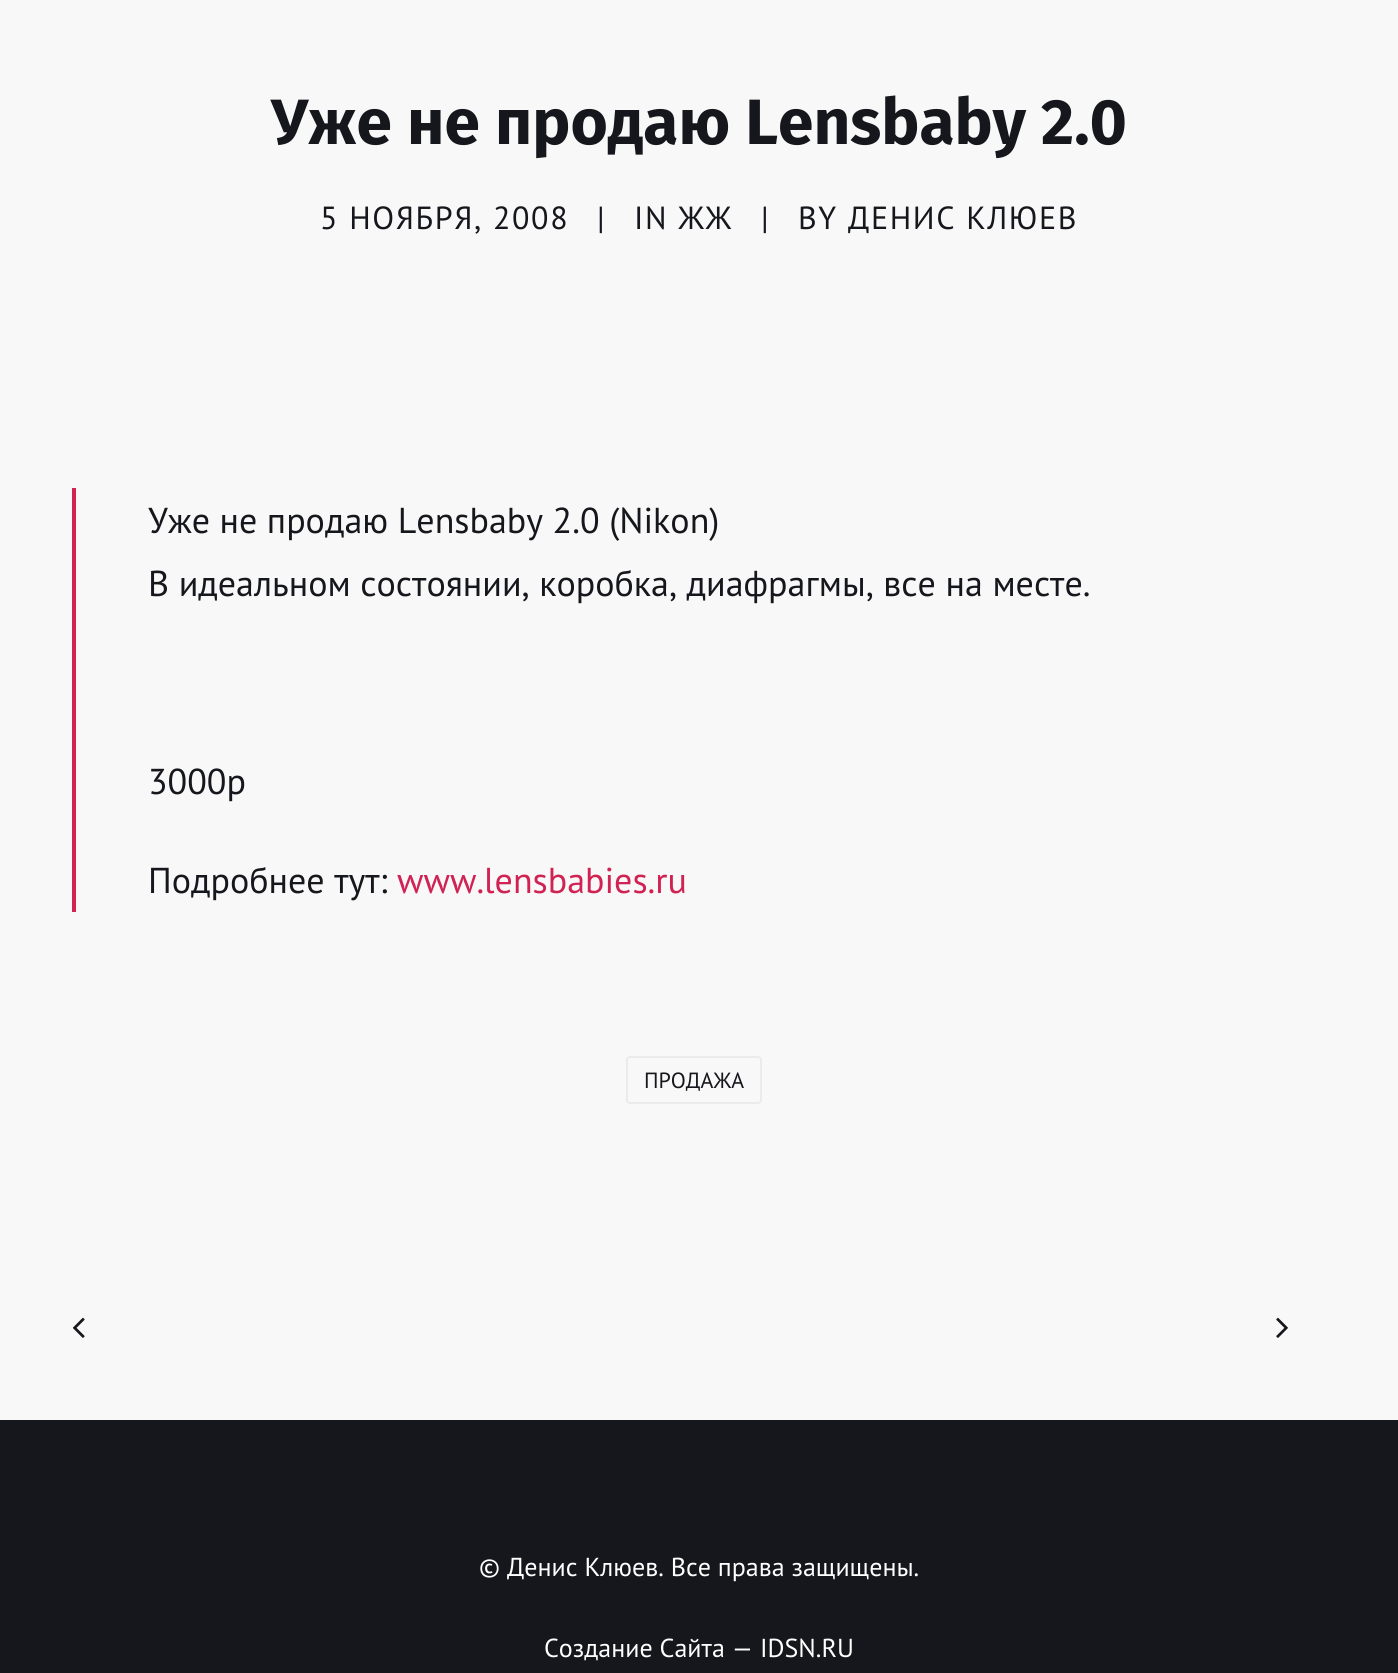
import math
import cairo


def write_spaced(ctx, x, y, s, letter, word):
	ctx.move_to(x, y)
	for ch in s:
		ctx.show_text(ch)
		ctx.rel_move_to(letter + word * (ch == ' '), 0)

def round_path(ctx, x, y, w, h, r):
	ctx.new_sub_path()
	for i, (u, v) in enumerate([(x + w - r, y + h - r), (x + r, y + h - r), (x + r, y + r), (x + w - r, y + r)]):
		ctx.arc(u, v, r, i * math.pi / 2, (i + 1) * math.pi / 2)
	ctx.close_path()

def paste(ctx, path, x, y, w, h):
	ctx.save()
	ctx.set_source_surface(cairo.ImageSurface.create_from_png(path), x, y)
	ctx.rectangle(x, y, w, h)
	ctx.fill()
	ctx.restore()

def draw(ctx):
	ctx.set_source_rgb(0.969, 0.969, 0.969)
	ctx.paint()
	ctx.select_font_face('Fira Sans', cairo.FONT_SLANT_NORMAL, cairo.FONT_WEIGHT_BOLD)
	ctx.set_font_size(64)
	ctx.set_source_rgb(0.086, 0.09, 0.114)
	ctx.move_to(271, 144)
	ctx.show_text('Уже не продаю Lensbaby 2.0')
	ctx.select_font_face('PT Sans')
	ctx.set_font_size(32)
	for x, y, s in [
		(320, 229, '5 НОЯБРЯ, 2008'),
		(597, 229, '|'),
		(634, 229, 'IN ЖЖ'),
		(761, 229, '|'),
		(798, 229, 'BY ДЕНИС КЛЮЕВ'),
	]:
		write_spaced(ctx, x, y, s, 1.6, 0)
	ctx.set_source_rgb(0.82, 0.133, 0.329)
	ctx.rectangle(72, 488, 4, 424)
	ctx.fill()
	ctx.set_font_size(36)
	ctx.set_source_rgb(0.086, 0.09, 0.114)
	for x, y, s in [
		(148, 533, 'Уже не продаю Lensbaby 2.0 (Nikon)'),
		(148, 596, 'В идеальном состоянии, коробка, диафрагмы, все на месте.'),
		(148, 794, '3000р'),
		(148, 893, 'Подробнее тут:'),
	]:
		ctx.move_to(x, y)
		ctx.show_text(s)
	ctx.set_source_rgb(0.82, 0.133, 0.329)
	ctx.move_to(397, 893)
	ctx.show_text('www.lensbabies.ru')
	round_path(ctx, 627, 1057, 134, 46, 3)
	ctx.set_source_rgb(0.918, 0.918, 0.918)
	ctx.stroke()
	ctx.set_font_size(22)
	ctx.set_source_rgb(0.086, 0.09, 0.114)
	ctx.move_to(644, 1088)
	ctx.show_text('ПРОДАЖА')
	paste(ctx, 'media/1.png', 72, 1317, 13, 21)
	paste(ctx, 'media/2.png', 1276, 1317, 12, 21)
	ctx.rectangle(0, 1420, 1398, 253)
	ctx.fill()
	ctx.set_font_size(26)
	ctx.set_source_rgb(1, 1, 1)
	ctx.move_to(479, 1576)
	ctx.show_text('© Денис Клюев. Все права защищены.')
	ctx.move_to(544, 1657)
	ctx.show_text('Создание Сайта — IDSN.RU')


surface = cairo.ImageSurface(cairo.FORMAT_RGB24, 1398, 1673)
ctx = cairo.Context(surface)
options = cairo.FontOptions()
options.set_hint_metrics(cairo.HINT_METRICS_OFF)
options.set_hint_style(cairo.HINT_STYLE_NONE)
ctx.set_font_options(options)
ctx.set_miter_limit(4)
draw(ctx)
surface.write_to_png('image.png')
